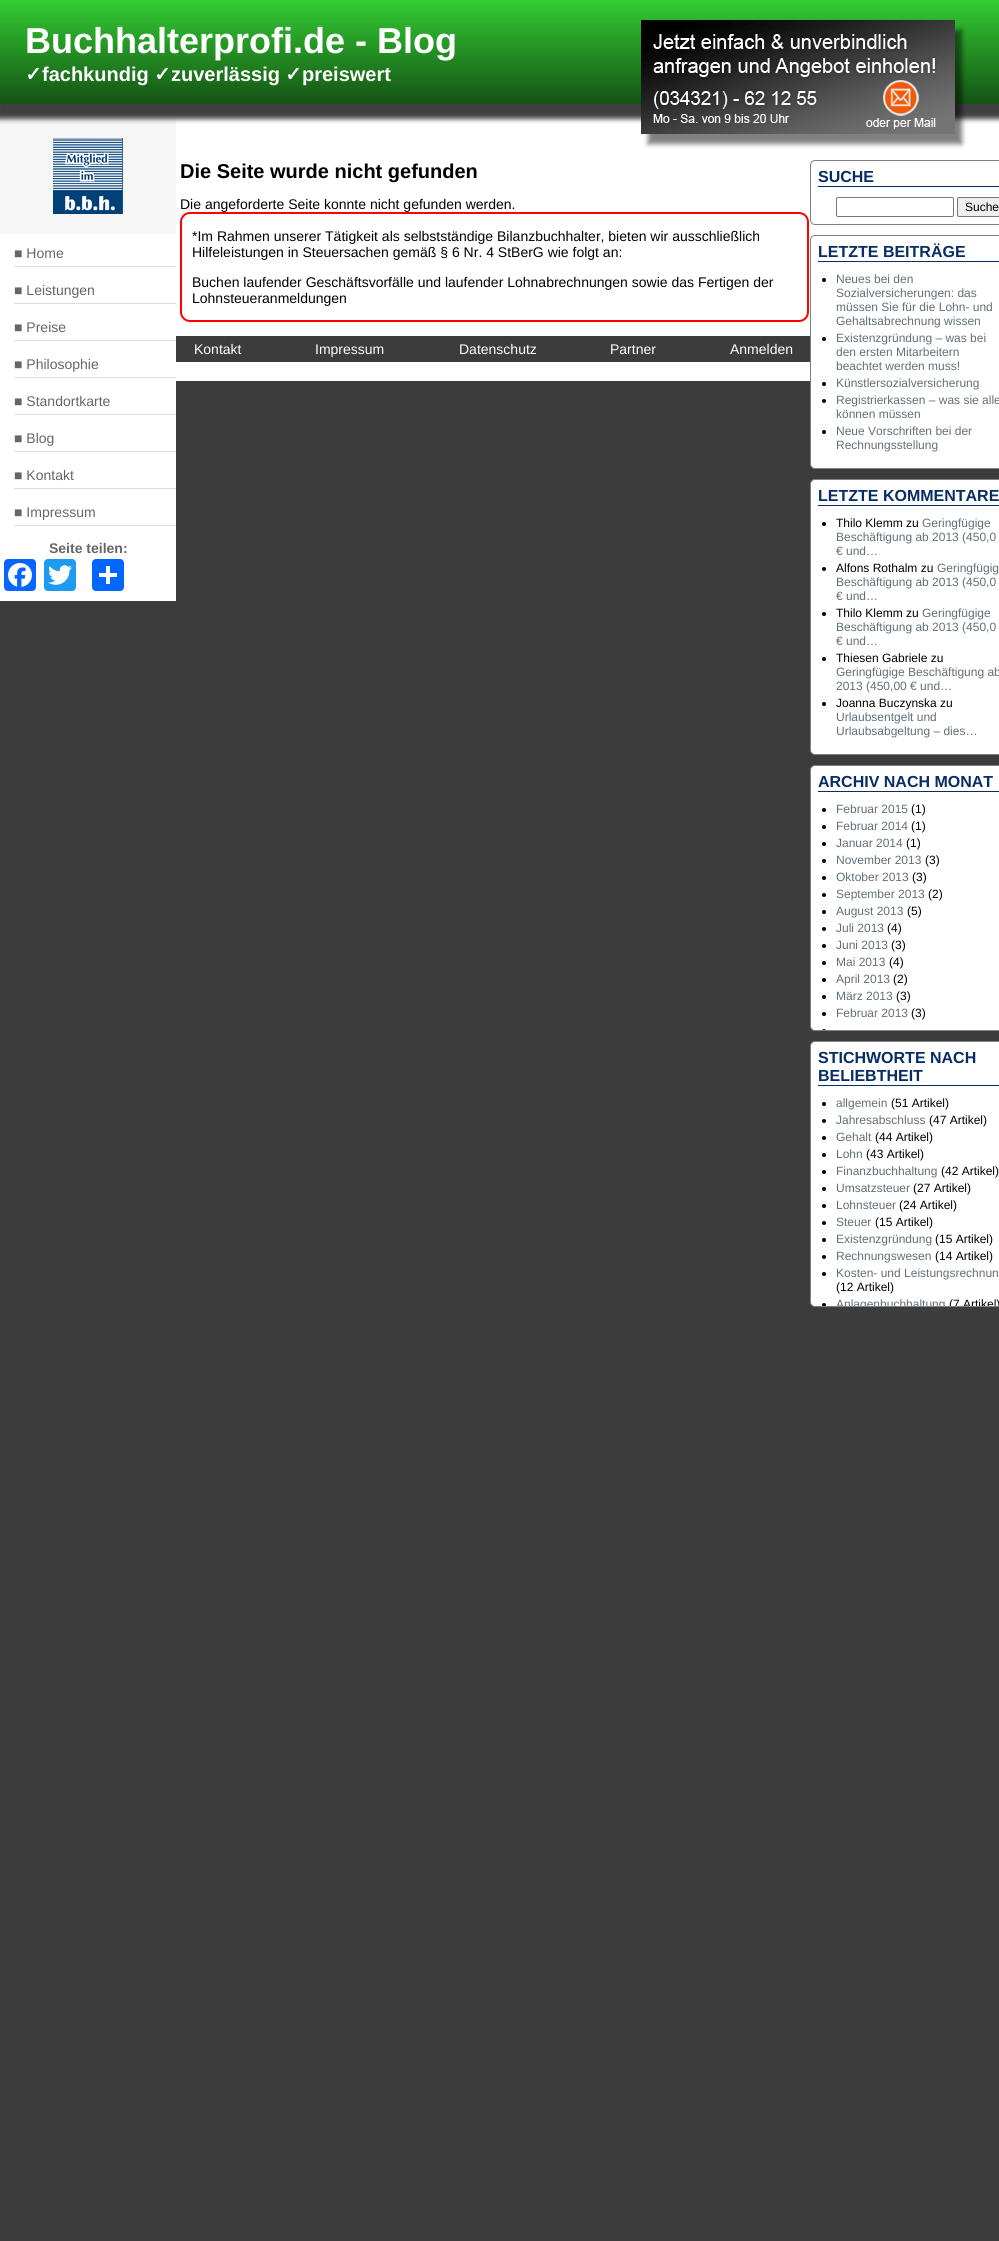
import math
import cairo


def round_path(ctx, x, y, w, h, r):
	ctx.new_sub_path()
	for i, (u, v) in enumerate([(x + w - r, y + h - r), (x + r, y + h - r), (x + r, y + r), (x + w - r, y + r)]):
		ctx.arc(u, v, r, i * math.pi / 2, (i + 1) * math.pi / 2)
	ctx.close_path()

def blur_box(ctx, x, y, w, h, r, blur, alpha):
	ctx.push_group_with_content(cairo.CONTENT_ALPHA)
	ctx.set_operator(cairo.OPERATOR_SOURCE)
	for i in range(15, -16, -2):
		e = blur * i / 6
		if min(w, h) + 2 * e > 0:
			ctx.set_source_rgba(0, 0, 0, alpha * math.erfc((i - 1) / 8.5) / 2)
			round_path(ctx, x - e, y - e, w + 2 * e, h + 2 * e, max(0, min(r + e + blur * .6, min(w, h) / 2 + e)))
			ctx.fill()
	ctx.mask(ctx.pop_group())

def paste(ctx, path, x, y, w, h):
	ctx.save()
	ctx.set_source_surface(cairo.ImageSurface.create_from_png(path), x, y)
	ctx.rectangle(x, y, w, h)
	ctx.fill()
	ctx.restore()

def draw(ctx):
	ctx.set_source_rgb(0.235, 0.235, 0.235)
	ctx.paint()
	ctx.set_source_rgb(1, 1, 1)
	ctx.rectangle(176, 104, 823, 277)
	ctx.rectangle(0, 104, 176, 497)
	ctx.fill()
	ctx.set_source_rgb(0.961, 0.961, 0.961)
	ctx.rectangle(0, 118, 176, 116)
	ctx.fill()
	ctx.set_source_rgb(0, 0, 0)
	blur_box(ctx, -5, 5, 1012, 114, 0, 2.5, 0.75)
	gradient = cairo.LinearGradient(510, 0, 510, 104)
	gradient.add_color_stop_rgba(0, 0.2, 0.8, 0.2, 1)
	gradient.add_color_stop_rgba(1, 0.078, 0.322, 0.078, 1)
	ctx.set_source(gradient)
	ctx.rectangle(0, 0, 999, 104)
	ctx.fill()
	ctx.select_font_face('Liberation Sans', cairo.FONT_SLANT_NORMAL, cairo.FONT_WEIGHT_BOLD)
	ctx.set_font_size(36)
	ctx.set_source_rgb(1, 1, 1)
	ctx.move_to(25, 53)
	ctx.show_text('Buchhalterprofi.de - Blog')
	ctx.set_source_rgb(0, 0, 0)
	blur_box(ctx, 648, 30, 314, 114, 0, 2.5, 0.5)
	paste(ctx, 'media/1.png', 641, 20, 314, 114)
	ctx.select_font_face('DejaVu Sans', cairo.FONT_SLANT_NORMAL, cairo.FONT_WEIGHT_BOLD)
	ctx.set_font_size(20)
	ctx.set_source_rgb(1, 1, 1)
	ctx.move_to(25, 81)
	ctx.show_text('✓')
	ctx.select_font_face('Liberation Sans', cairo.FONT_SLANT_NORMAL, cairo.FONT_WEIGHT_BOLD)
	ctx.move_to(42, 81)
	ctx.show_text('fachkundig')
	ctx.select_font_face('DejaVu Sans', cairo.FONT_SLANT_NORMAL, cairo.FONT_WEIGHT_BOLD)
	ctx.move_to(154, 81)
	ctx.show_text('✓')
	ctx.select_font_face('Liberation Sans', cairo.FONT_SLANT_NORMAL, cairo.FONT_WEIGHT_BOLD)
	ctx.move_to(171, 81)
	ctx.show_text('zuverlässig')
	ctx.select_font_face('DejaVu Sans', cairo.FONT_SLANT_NORMAL, cairo.FONT_WEIGHT_BOLD)
	ctx.move_to(285, 81)
	ctx.show_text('✓')
	ctx.select_font_face('Liberation Sans', cairo.FONT_SLANT_NORMAL, cairo.FONT_WEIGHT_BOLD)
	ctx.move_to(302, 81)
	ctx.show_text('preiswert')
	paste(ctx, 'media/2.png', 53, 138, 70, 76)
	ctx.set_source_rgb(0.867, 0.867, 0.867)
	ctx.rectangle(14, 266, 162, 1)
	ctx.fill()
	ctx.select_font_face('Liberation Sans')
	ctx.set_font_size(14)
	ctx.set_source_rgb(0.4, 0.4, 0.4)
	ctx.move_to(14, 258)
	ctx.show_text('■ Home')
	ctx.set_source_rgb(0.867, 0.867, 0.867)
	ctx.rectangle(14, 303, 162, 1)
	ctx.fill()
	ctx.set_source_rgb(0.4, 0.4, 0.4)
	ctx.move_to(14, 295)
	ctx.show_text('■ Leistungen')
	ctx.set_source_rgb(0.867, 0.867, 0.867)
	ctx.rectangle(14, 340, 162, 1)
	ctx.fill()
	ctx.set_source_rgb(0.4, 0.4, 0.4)
	ctx.move_to(14, 332)
	ctx.show_text('■ Preise')
	ctx.set_source_rgb(0.867, 0.867, 0.867)
	ctx.rectangle(14, 377, 162, 1)
	ctx.fill()
	ctx.set_source_rgb(0.4, 0.4, 0.4)
	ctx.move_to(14, 369)
	ctx.show_text('■ Philosophie')
	ctx.set_source_rgb(0.867, 0.867, 0.867)
	ctx.rectangle(14, 414, 162, 1)
	ctx.fill()
	ctx.set_source_rgb(0.4, 0.4, 0.4)
	ctx.move_to(14, 406)
	ctx.show_text('■ Standortkarte')
	ctx.set_source_rgb(0.867, 0.867, 0.867)
	ctx.rectangle(14, 451, 162, 1)
	ctx.fill()
	ctx.set_source_rgb(0.4, 0.4, 0.4)
	ctx.move_to(14, 443)
	ctx.show_text('■ Blog')
	ctx.set_source_rgb(0.867, 0.867, 0.867)
	ctx.rectangle(14, 488, 162, 1)
	ctx.fill()
	ctx.set_source_rgb(0.4, 0.4, 0.4)
	ctx.move_to(14, 480)
	ctx.show_text('■ Kontakt')
	ctx.set_source_rgb(0.867, 0.867, 0.867)
	ctx.rectangle(14, 525, 162, 1)
	ctx.fill()
	ctx.set_source_rgb(0.4, 0.4, 0.4)
	ctx.move_to(14, 517)
	ctx.show_text('■ Impressum')
	ctx.select_font_face('Liberation Sans', cairo.FONT_SLANT_NORMAL, cairo.FONT_WEIGHT_BOLD)
	ctx.move_to(49, 553)
	ctx.show_text('Seite teilen:')
	ctx.set_source_rgb(0.031, 0.4, 1)
	round_path(ctx, 4, 559, 32, 32, 4)
	ctx.fill()
	paste(ctx, 'media/3.png', 8, 563, 24, 24)
	ctx.set_source_rgb(0.114, 0.608, 0.941)
	round_path(ctx, 44, 559, 32, 32, 4)
	ctx.fill()
	paste(ctx, 'media/4.png', 48, 565, 24, 20)
	ctx.set_source_rgb(0.004, 0.4, 1)
	round_path(ctx, 92, 559, 32, 32, 4)
	ctx.fill()
	ctx.set_source_rgb(1, 1, 1)
	ctx.rectangle(106, 566, 4, 18)
	ctx.fill()
	ctx.rectangle(99, 573, 18, 4)
	ctx.fill()
	ctx.set_font_size(20)
	ctx.set_source_rgb(0, 0, 0)
	ctx.move_to(180, 178)
	ctx.show_text('Die Seite wurde nicht gefunden')
	ctx.select_font_face('Liberation Sans')
	ctx.set_font_size(14)
	ctx.move_to(180, 209)
	ctx.show_text('Die angeforderte Seite konnte nicht gefunden werden.')
	round_path(ctx, 181, 213, 627, 108, 9)
	ctx.set_source_rgb(1, 0, 0)
	ctx.stroke()
	ctx.set_source_rgb(0, 0, 0)
	for x, y, s in [
		(192, 241, '*Im Rahmen unserer Tätigkeit als selbstständige Bilanzbuchhalter, bieten wir ausschließlich'),
		(192, 257, 'Hilfeleistungen in Steuersachen gemäß § 6 Nr. 4 StBerG wie folgt an:'),
		(192, 287, 'Buchen laufender Geschäftsvorfälle und laufender Lohnabrechnungen sowie das Fertigen der'),
		(192, 303, 'Lohnsteueranmeldungen'),
	]:
		ctx.move_to(x, y)
		ctx.show_text(s)
	round_path(ctx, 810.5, 160.5, 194, 64, 4.5)
	ctx.set_source_rgb(0.502, 0.502, 0.502)
	ctx.set_line_width(1)
	ctx.stroke()
	ctx.set_source_rgb(0.031, 0.176, 0.388)
	ctx.rectangle(818, 186, 181, 1)
	ctx.fill()
	ctx.select_font_face('Liberation Sans', cairo.FONT_SLANT_NORMAL, cairo.FONT_WEIGHT_BOLD)
	ctx.set_font_size(16)
	ctx.move_to(818, 182)
	ctx.show_text('SUCHE')
	round_path(ctx, 836.5, 197.5, 117, 19, 1.5)
	ctx.set_source_rgb(0.463, 0.463, 0.463)
	ctx.stroke()
	ctx.set_source_rgb(0.937, 0.937, 0.937)
	round_path(ctx, 957.5, 197.5, 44, 19, 1.5)
	ctx.fill_preserve()
	ctx.set_source_rgb(0.463, 0.463, 0.463)
	ctx.stroke()
	ctx.select_font_face('Liberation Sans')
	ctx.set_font_size(12)
	ctx.set_source_rgb(0, 0, 0)
	ctx.move_to(965, 211)
	ctx.show_text('Suche')
	ctx.set_source_rgb(1, 1, 1)
	round_path(ctx, 810.5, 235.5, 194, 233, 4.5)
	ctx.fill_preserve()
	ctx.set_source_rgb(0.502, 0.502, 0.502)
	ctx.stroke()
	ctx.set_source_rgb(0.031, 0.176, 0.388)
	ctx.rectangle(818, 261, 181, 1)
	ctx.fill()
	ctx.select_font_face('Liberation Sans', cairo.FONT_SLANT_NORMAL, cairo.FONT_WEIGHT_BOLD)
	ctx.set_font_size(16)
	ctx.move_to(818, 257)
	ctx.show_text('LETZTE BEITRÄGE')
	ctx.set_source_rgb(0, 0, 0)
	ctx.new_path()
	ctx.arc(824, 280, 2, 0, 2 * math.pi)
	ctx.fill()
	ctx.select_font_face('Liberation Sans')
	ctx.set_font_size(12)
	ctx.set_source_rgb(0.384, 0.435, 0.467)
	for x, y, s in [
		(836, 283, 'Neues bei den'),
		(836, 297, 'Sozialversicherungen: das'),
		(836, 311, 'müssen Sie für die Lohn- und'),
		(836, 325, 'Gehaltsabrechnung wissen'),
	]:
		ctx.move_to(x, y)
		ctx.show_text(s)
	ctx.set_source_rgb(0, 0, 0)
	ctx.new_path()
	ctx.arc(824, 339, 2, 0, 2 * math.pi)
	ctx.fill()
	ctx.set_source_rgb(0.384, 0.435, 0.467)
	for x, y, s in [
		(836, 342, 'Existenzgründung – was bei'),
		(836, 356, 'den ersten Mitarbeitern'),
		(836, 370, 'beachtet werden muss!'),
	]:
		ctx.move_to(x, y)
		ctx.show_text(s)
	ctx.set_source_rgb(0, 0, 0)
	ctx.new_path()
	ctx.arc(824, 384, 2, 0, 2 * math.pi)
	ctx.fill()
	ctx.set_source_rgb(0.384, 0.435, 0.467)
	ctx.move_to(836, 387)
	ctx.show_text('Künstlersozialversicherung')
	ctx.set_source_rgb(0, 0, 0)
	ctx.new_path()
	ctx.arc(824, 401, 2, 0, 2 * math.pi)
	ctx.fill()
	ctx.set_source_rgb(0.384, 0.435, 0.467)
	ctx.move_to(836, 404)
	ctx.show_text('Registrierkassen – was sie alle')
	ctx.move_to(836, 418)
	ctx.show_text('können müssen')
	ctx.set_source_rgb(0, 0, 0)
	ctx.new_path()
	ctx.arc(824, 432, 2, 0, 2 * math.pi)
	ctx.fill()
	ctx.set_source_rgb(0.384, 0.435, 0.467)
	ctx.move_to(836, 435)
	ctx.show_text('Neue Vorschriften bei der')
	ctx.move_to(836, 449)
	ctx.show_text('Rechnungsstellung')
	ctx.set_source_rgb(1, 1, 1)
	round_path(ctx, 810.5, 479.5, 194, 275, 4.5)
	ctx.fill_preserve()
	ctx.set_source_rgb(0.502, 0.502, 0.502)
	ctx.stroke()
	ctx.set_source_rgb(0.031, 0.176, 0.388)
	ctx.rectangle(818, 505, 181, 1)
	ctx.fill()
	ctx.select_font_face('Liberation Sans', cairo.FONT_SLANT_NORMAL, cairo.FONT_WEIGHT_BOLD)
	ctx.set_font_size(16)
	ctx.move_to(818, 501)
	ctx.show_text('LETZTE KOMMENTARE')
	ctx.set_source_rgb(0, 0, 0)
	ctx.new_path()
	ctx.arc(824, 524, 2, 0, 2 * math.pi)
	ctx.fill()
	ctx.select_font_face('Liberation Sans')
	ctx.set_font_size(12)
	ctx.move_to(836, 527)
	ctx.show_text('Thilo Klemm zu')
	ctx.set_source_rgb(0.384, 0.435, 0.467)
	for x, y, s in [
		(922, 527, 'Geringfügige'),
		(836, 541, 'Beschäftigung ab 2013 (450,0'),
		(836, 555, '€ und…'),
	]:
		ctx.move_to(x, y)
		ctx.show_text(s)
	ctx.set_source_rgb(0, 0, 0)
	ctx.new_path()
	ctx.arc(824, 569, 2, 0, 2 * math.pi)
	ctx.fill()
	ctx.move_to(836, 572)
	ctx.show_text('Alfons Rothalm zu')
	ctx.set_source_rgb(0.384, 0.435, 0.467)
	for x, y, s in [
		(937, 572, 'Geringfügig'),
		(836, 586, 'Beschäftigung ab 2013 (450,0'),
		(836, 600, '€ und…'),
	]:
		ctx.move_to(x, y)
		ctx.show_text(s)
	ctx.set_source_rgb(0, 0, 0)
	ctx.new_path()
	ctx.arc(824, 614, 2, 0, 2 * math.pi)
	ctx.fill()
	ctx.move_to(836, 617)
	ctx.show_text('Thilo Klemm zu')
	ctx.set_source_rgb(0.384, 0.435, 0.467)
	for x, y, s in [
		(922, 617, 'Geringfügige'),
		(836, 631, 'Beschäftigung ab 2013 (450,0'),
		(836, 645, '€ und…'),
	]:
		ctx.move_to(x, y)
		ctx.show_text(s)
	ctx.set_source_rgb(0, 0, 0)
	ctx.new_path()
	ctx.arc(824, 659, 2, 0, 2 * math.pi)
	ctx.fill()
	ctx.move_to(836, 662)
	ctx.show_text('Thiesen Gabriele zu')
	ctx.set_source_rgb(0.384, 0.435, 0.467)
	ctx.move_to(836, 676)
	ctx.show_text('Geringfügige Beschäftigung ab')
	ctx.move_to(836, 690)
	ctx.show_text('2013 (450,00 € und…')
	ctx.set_source_rgb(0, 0, 0)
	ctx.new_path()
	ctx.arc(824, 704, 2, 0, 2 * math.pi)
	ctx.fill()
	ctx.move_to(836, 707)
	ctx.show_text('Joanna Buczynska zu')
	ctx.set_source_rgb(0.384, 0.435, 0.467)
	ctx.move_to(836, 721)
	ctx.show_text('Urlaubsentgelt und')
	ctx.move_to(836, 735)
	ctx.show_text('Urlaubsabgeltung – dies…')
	ctx.set_source_rgb(1, 1, 1)
	round_path(ctx, 810.5, 765.5, 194, 265, 4.5)
	ctx.fill_preserve()
	ctx.set_source_rgb(0.502, 0.502, 0.502)
	ctx.stroke()
	ctx.set_source_rgb(0.031, 0.176, 0.388)
	ctx.rectangle(818, 791, 181, 1)
	ctx.fill()
	ctx.select_font_face('Liberation Sans', cairo.FONT_SLANT_NORMAL, cairo.FONT_WEIGHT_BOLD)
	ctx.set_font_size(16)
	ctx.move_to(818, 787)
	ctx.show_text('ARCHIV NACH MONAT')
	ctx.set_source_rgb(0, 0, 0)
	ctx.new_path()
	ctx.arc(824, 810, 2, 0, 2 * math.pi)
	ctx.fill()
	ctx.select_font_face('Liberation Sans')
	ctx.set_font_size(12)
	ctx.set_source_rgb(0.384, 0.435, 0.467)
	ctx.move_to(836, 813)
	ctx.show_text('Februar 2015')
	ctx.set_source_rgb(0, 0, 0)
	ctx.move_to(911, 813)
	ctx.show_text('(1)')
	ctx.new_path()
	ctx.arc(824, 827, 2, 0, 2 * math.pi)
	ctx.fill()
	ctx.set_source_rgb(0.384, 0.435, 0.467)
	ctx.move_to(836, 830)
	ctx.show_text('Februar 2014')
	ctx.set_source_rgb(0, 0, 0)
	ctx.move_to(911, 830)
	ctx.show_text('(1)')
	ctx.new_path()
	ctx.arc(824, 844, 2, 0, 2 * math.pi)
	ctx.fill()
	ctx.set_source_rgb(0.384, 0.435, 0.467)
	ctx.move_to(836, 847)
	ctx.show_text('Januar 2014')
	ctx.set_source_rgb(0, 0, 0)
	ctx.move_to(906, 847)
	ctx.show_text('(1)')
	ctx.new_path()
	ctx.arc(824, 861, 2, 0, 2 * math.pi)
	ctx.fill()
	ctx.set_source_rgb(0.384, 0.435, 0.467)
	ctx.move_to(836, 864)
	ctx.show_text('November 2013')
	ctx.set_source_rgb(0, 0, 0)
	ctx.move_to(925, 864)
	ctx.show_text('(3)')
	ctx.new_path()
	ctx.arc(824, 878, 2, 0, 2 * math.pi)
	ctx.fill()
	ctx.set_source_rgb(0.384, 0.435, 0.467)
	ctx.move_to(836, 881)
	ctx.show_text('Oktober 2013')
	ctx.set_source_rgb(0, 0, 0)
	ctx.move_to(912, 881)
	ctx.show_text('(3)')
	ctx.new_path()
	ctx.arc(824, 895, 2, 0, 2 * math.pi)
	ctx.fill()
	ctx.set_source_rgb(0.384, 0.435, 0.467)
	ctx.move_to(836, 898)
	ctx.show_text('September 2013')
	ctx.set_source_rgb(0, 0, 0)
	ctx.move_to(928, 898)
	ctx.show_text('(2)')
	ctx.new_path()
	ctx.arc(824, 912, 2, 0, 2 * math.pi)
	ctx.fill()
	ctx.set_source_rgb(0.384, 0.435, 0.467)
	ctx.move_to(836, 915)
	ctx.show_text('August 2013')
	ctx.set_source_rgb(0, 0, 0)
	ctx.move_to(907, 915)
	ctx.show_text('(5)')
	ctx.new_path()
	ctx.arc(824, 929, 2, 0, 2 * math.pi)
	ctx.fill()
	ctx.set_source_rgb(0.384, 0.435, 0.467)
	ctx.move_to(836, 932)
	ctx.show_text('Juli 2013')
	ctx.set_source_rgb(0, 0, 0)
	ctx.move_to(887, 932)
	ctx.show_text('(4)')
	ctx.new_path()
	ctx.arc(824, 946, 2, 0, 2 * math.pi)
	ctx.fill()
	ctx.set_source_rgb(0.384, 0.435, 0.467)
	ctx.move_to(836, 949)
	ctx.show_text('Juni 2013')
	ctx.set_source_rgb(0, 0, 0)
	ctx.move_to(891, 949)
	ctx.show_text('(3)')
	ctx.new_path()
	ctx.arc(824, 963, 2, 0, 2 * math.pi)
	ctx.fill()
	ctx.set_source_rgb(0.384, 0.435, 0.467)
	ctx.move_to(836, 966)
	ctx.show_text('Mai 2013')
	ctx.set_source_rgb(0, 0, 0)
	ctx.move_to(889, 966)
	ctx.show_text('(4)')
	ctx.new_path()
	ctx.arc(824, 980, 2, 0, 2 * math.pi)
	ctx.fill()
	ctx.set_source_rgb(0.384, 0.435, 0.467)
	ctx.move_to(836, 983)
	ctx.show_text('April 2013')
	ctx.set_source_rgb(0, 0, 0)
	ctx.move_to(893, 983)
	ctx.show_text('(2)')
	ctx.new_path()
	ctx.arc(824, 997, 2, 0, 2 * math.pi)
	ctx.fill()
	ctx.set_source_rgb(0.384, 0.435, 0.467)
	ctx.move_to(836, 1000)
	ctx.show_text('März 2013')
	ctx.set_source_rgb(0, 0, 0)
	ctx.move_to(896, 1000)
	ctx.show_text('(3)')
	ctx.new_path()
	ctx.arc(824, 1014, 2, 0, 2 * math.pi)
	ctx.fill()
	ctx.set_source_rgb(0.384, 0.435, 0.467)
	ctx.move_to(836, 1017)
	ctx.show_text('Februar 2013')
	ctx.set_source_rgb(0, 0, 0)
	ctx.move_to(911, 1017)
	ctx.show_text('(3)')
	ctx.new_path()
	ctx.move_to(824, 1029)
	ctx.curve_to(825, 1029, 826, 1030, 826, 1031)
	ctx.line_to(826, 1030)
	ctx.line_to(822, 1030)
	ctx.line_to(822, 1031)
	ctx.curve_to(822, 1030, 823, 1029, 824, 1029)
	ctx.close_path()
	ctx.fill()
	ctx.set_source_rgb(1, 1, 1)
	round_path(ctx, 810.5, 1041.5, 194, 265, 4.5)
	ctx.fill_preserve()
	ctx.set_source_rgb(0.502, 0.502, 0.502)
	ctx.stroke()
	ctx.set_source_rgb(0.031, 0.176, 0.388)
	ctx.rectangle(818, 1085, 181, 1)
	ctx.fill()
	ctx.select_font_face('Liberation Sans', cairo.FONT_SLANT_NORMAL, cairo.FONT_WEIGHT_BOLD)
	ctx.set_font_size(16)
	ctx.move_to(818, 1063)
	ctx.show_text('STICHWORTE NACH')
	ctx.move_to(818, 1081)
	ctx.show_text('BELIEBTHEIT')
	ctx.set_source_rgb(0, 0, 0)
	ctx.new_path()
	ctx.arc(824, 1104, 2, 0, 2 * math.pi)
	ctx.fill()
	ctx.select_font_face('Liberation Sans')
	ctx.set_font_size(12)
	ctx.set_source_rgb(0.384, 0.435, 0.467)
	ctx.move_to(836, 1107)
	ctx.show_text('allgemein')
	ctx.set_source_rgb(0, 0, 0)
	ctx.move_to(891, 1107)
	ctx.show_text('(51 Artikel)')
	ctx.new_path()
	ctx.arc(824, 1121, 2, 0, 2 * math.pi)
	ctx.fill()
	ctx.set_source_rgb(0.384, 0.435, 0.467)
	ctx.move_to(836, 1124)
	ctx.show_text('Jahresabschluss')
	ctx.set_source_rgb(0, 0, 0)
	ctx.move_to(929, 1124)
	ctx.show_text('(47 Artikel)')
	ctx.new_path()
	ctx.arc(824, 1138, 2, 0, 2 * math.pi)
	ctx.fill()
	ctx.set_source_rgb(0.384, 0.435, 0.467)
	ctx.move_to(836, 1141)
	ctx.show_text('Gehalt')
	ctx.set_source_rgb(0, 0, 0)
	ctx.move_to(875, 1141)
	ctx.show_text('(44 Artikel)')
	ctx.new_path()
	ctx.arc(824, 1155, 2, 0, 2 * math.pi)
	ctx.fill()
	ctx.set_source_rgb(0.384, 0.435, 0.467)
	ctx.move_to(836, 1158)
	ctx.show_text('Lohn')
	ctx.set_source_rgb(0, 0, 0)
	ctx.move_to(866, 1158)
	ctx.show_text('(43 Artikel)')
	ctx.new_path()
	ctx.arc(824, 1172, 2, 0, 2 * math.pi)
	ctx.fill()
	ctx.set_source_rgb(0.384, 0.435, 0.467)
	ctx.move_to(836, 1175)
	ctx.show_text('Finanzbuchhaltung')
	ctx.set_source_rgb(0, 0, 0)
	ctx.move_to(941, 1175)
	ctx.show_text('(42 Artikel)')
	ctx.new_path()
	ctx.arc(824, 1189, 2, 0, 2 * math.pi)
	ctx.fill()
	ctx.set_source_rgb(0.384, 0.435, 0.467)
	ctx.move_to(836, 1192)
	ctx.show_text('Umsatzsteuer')
	ctx.set_source_rgb(0, 0, 0)
	ctx.move_to(913, 1192)
	ctx.show_text('(27 Artikel)')
	ctx.new_path()
	ctx.arc(824, 1206, 2, 0, 2 * math.pi)
	ctx.fill()
	ctx.set_source_rgb(0.384, 0.435, 0.467)
	ctx.move_to(836, 1209)
	ctx.show_text('Lohnsteuer')
	ctx.set_source_rgb(0, 0, 0)
	ctx.move_to(899, 1209)
	ctx.show_text('(24 Artikel)')
	ctx.new_path()
	ctx.arc(824, 1223, 2, 0, 2 * math.pi)
	ctx.fill()
	ctx.set_source_rgb(0.384, 0.435, 0.467)
	ctx.move_to(836, 1226)
	ctx.show_text('Steuer')
	ctx.set_source_rgb(0, 0, 0)
	ctx.move_to(875, 1226)
	ctx.show_text('(15 Artikel)')
	ctx.new_path()
	ctx.arc(824, 1240, 2, 0, 2 * math.pi)
	ctx.fill()
	ctx.set_source_rgb(0.384, 0.435, 0.467)
	ctx.move_to(836, 1243)
	ctx.show_text('Existenzgründung')
	ctx.set_source_rgb(0, 0, 0)
	ctx.move_to(935, 1243)
	ctx.show_text('(15 Artikel)')
	ctx.new_path()
	ctx.arc(824, 1257, 2, 0, 2 * math.pi)
	ctx.fill()
	ctx.set_source_rgb(0.384, 0.435, 0.467)
	ctx.move_to(836, 1260)
	ctx.show_text('Rechnungswesen')
	ctx.set_source_rgb(0, 0, 0)
	ctx.move_to(935, 1260)
	ctx.show_text('(14 Artikel)')
	ctx.new_path()
	ctx.arc(824, 1274, 2, 0, 2 * math.pi)
	ctx.fill()
	ctx.set_source_rgb(0.384, 0.435, 0.467)
	ctx.move_to(836, 1277)
	ctx.show_text('Kosten- und Leistungsrechnun')
	ctx.set_source_rgb(0, 0, 0)
	ctx.move_to(836, 1291)
	ctx.show_text('(12 Artikel)')
	ctx.save()
	round_path(ctx, 811, 1042, 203, 264, 4)
	ctx.clip()
	ctx.arc(824, 1305, 2, 0, 2 * math.pi)
	ctx.fill()
	ctx.set_source_rgb(0.384, 0.435, 0.467)
	ctx.move_to(836, 1308)
	ctx.show_text('Anlagenbuchhaltung')
	ctx.set_source_rgb(0, 0, 0)
	ctx.move_to(949, 1308)
	ctx.show_text('(7 Artikel)')
	ctx.restore()
	ctx.set_source_rgb(0.235, 0.235, 0.235)
	ctx.rectangle(176, 336, 634, 26)
	ctx.fill()
	ctx.set_font_size(14)
	ctx.set_source_rgb(1, 1, 1)
	for x, y, s in [
		(194, 354, 'Kontakt'),
		(315, 354, 'Impressum'),
		(459, 354, 'Datenschutz'),
		(610, 354, 'Partner'),
		(730, 354, 'Anmelden'),
	]:
		ctx.move_to(x, y)
		ctx.show_text(s)


surface = cairo.ImageSurface(cairo.FORMAT_RGB24, 999, 2241)
ctx = cairo.Context(surface)
options = cairo.FontOptions()
options.set_hint_metrics(cairo.HINT_METRICS_OFF)
options.set_hint_style(cairo.HINT_STYLE_NONE)
ctx.set_font_options(options)
ctx.set_miter_limit(4)
draw(ctx)
surface.write_to_png('image.png')
